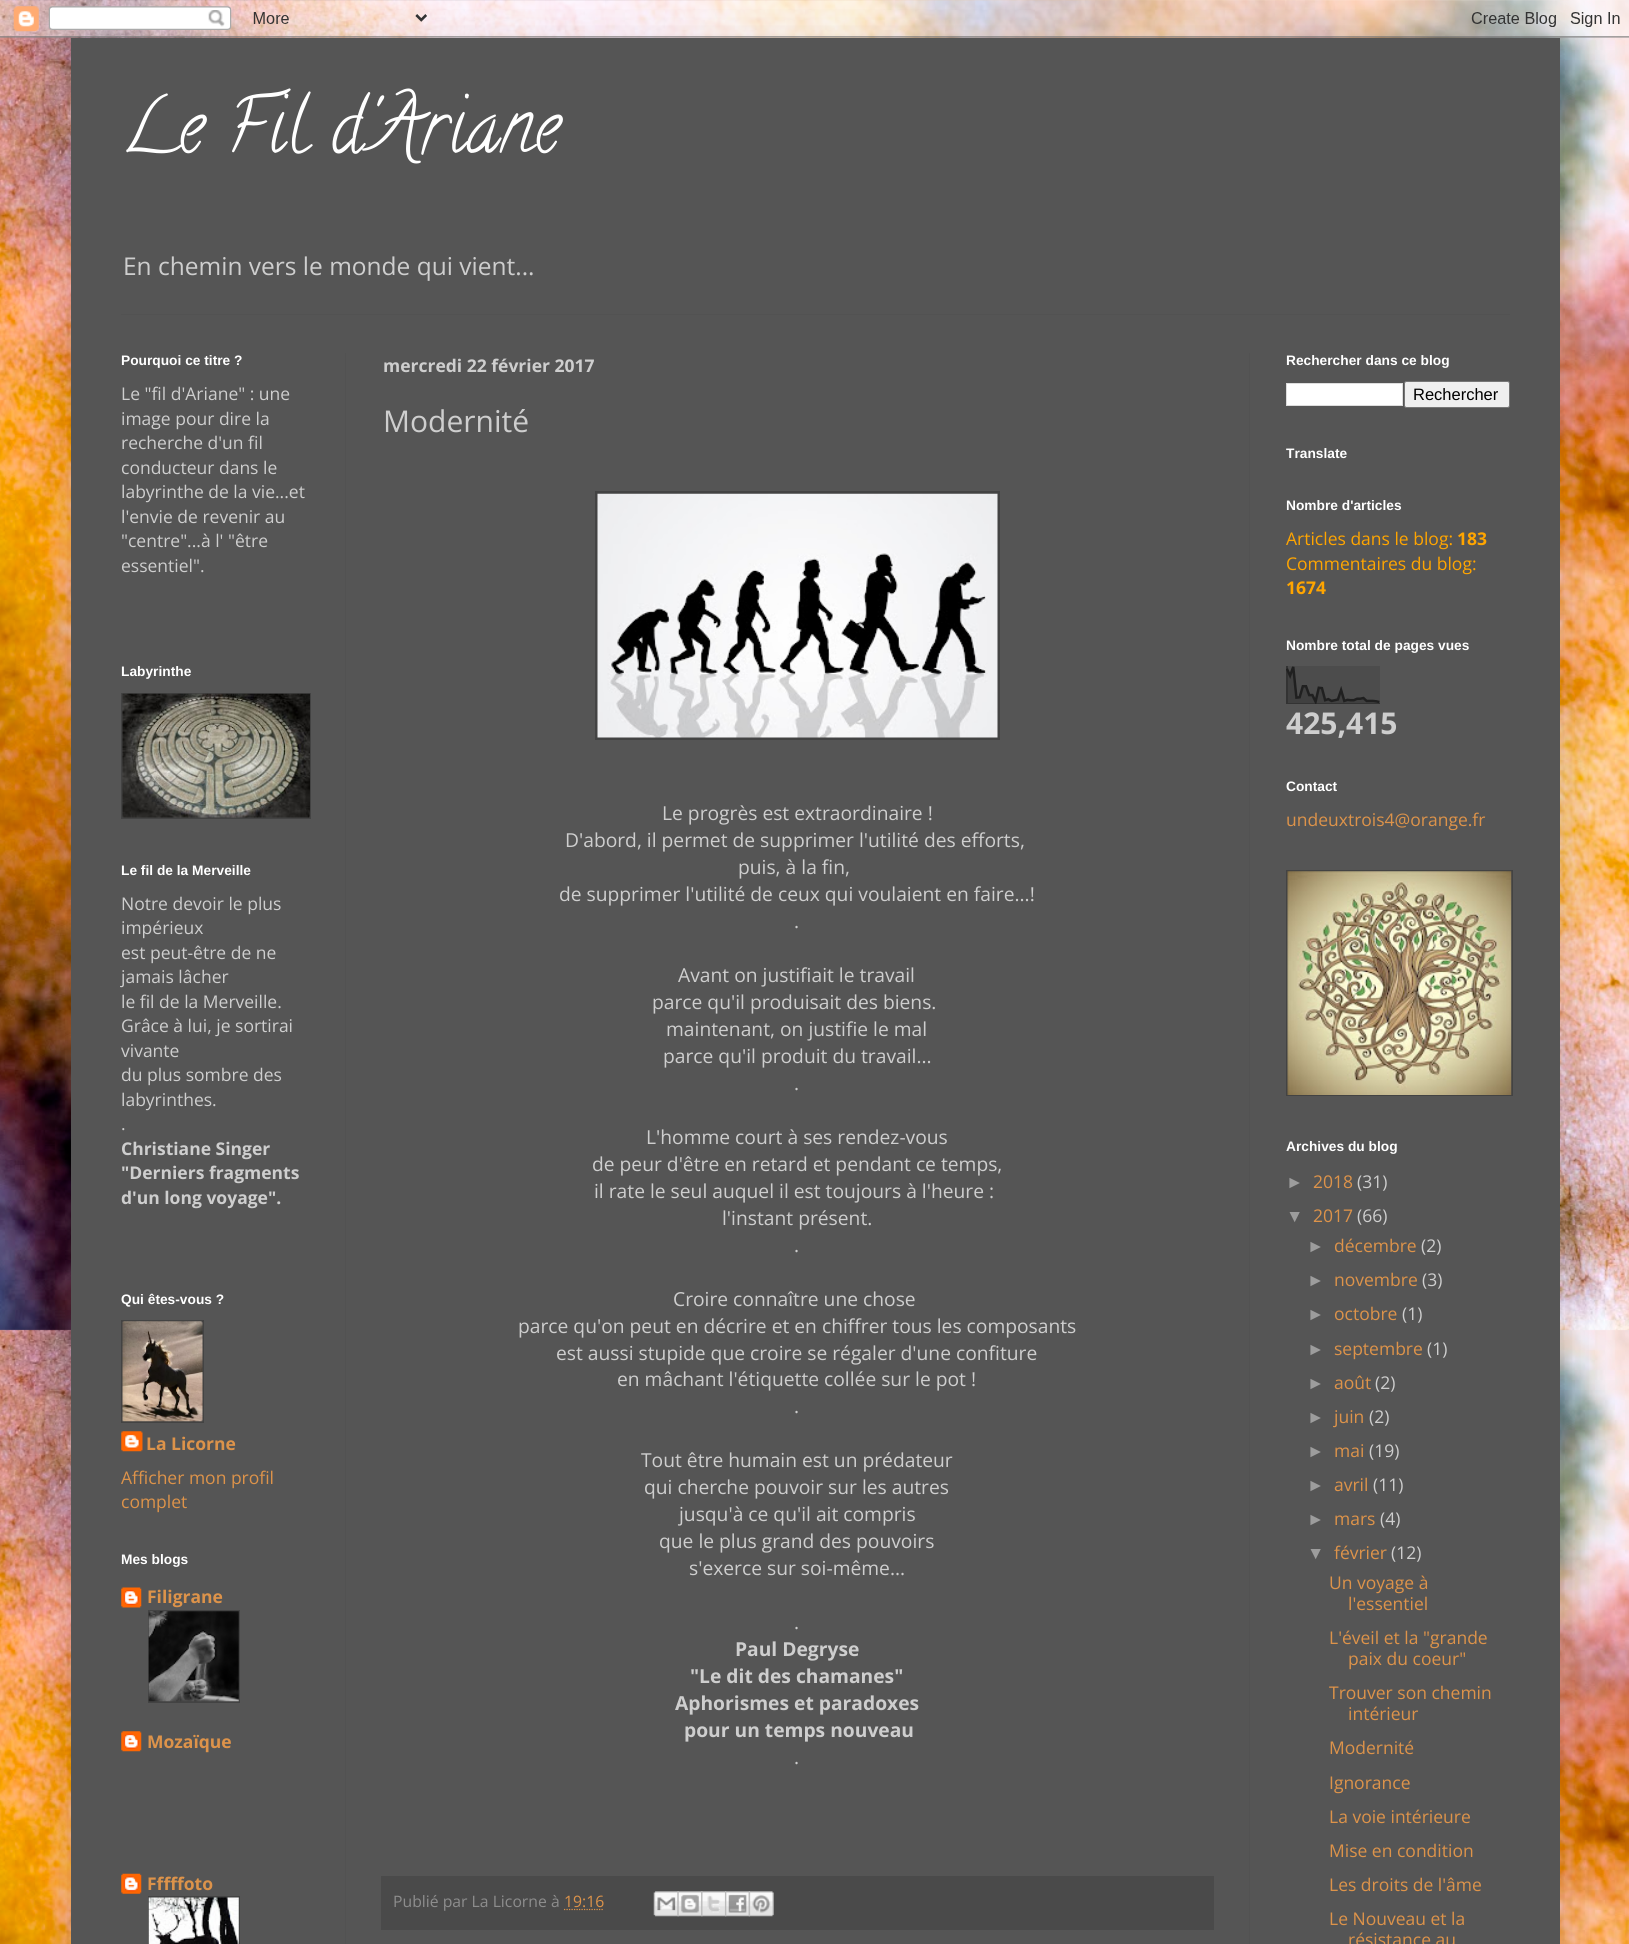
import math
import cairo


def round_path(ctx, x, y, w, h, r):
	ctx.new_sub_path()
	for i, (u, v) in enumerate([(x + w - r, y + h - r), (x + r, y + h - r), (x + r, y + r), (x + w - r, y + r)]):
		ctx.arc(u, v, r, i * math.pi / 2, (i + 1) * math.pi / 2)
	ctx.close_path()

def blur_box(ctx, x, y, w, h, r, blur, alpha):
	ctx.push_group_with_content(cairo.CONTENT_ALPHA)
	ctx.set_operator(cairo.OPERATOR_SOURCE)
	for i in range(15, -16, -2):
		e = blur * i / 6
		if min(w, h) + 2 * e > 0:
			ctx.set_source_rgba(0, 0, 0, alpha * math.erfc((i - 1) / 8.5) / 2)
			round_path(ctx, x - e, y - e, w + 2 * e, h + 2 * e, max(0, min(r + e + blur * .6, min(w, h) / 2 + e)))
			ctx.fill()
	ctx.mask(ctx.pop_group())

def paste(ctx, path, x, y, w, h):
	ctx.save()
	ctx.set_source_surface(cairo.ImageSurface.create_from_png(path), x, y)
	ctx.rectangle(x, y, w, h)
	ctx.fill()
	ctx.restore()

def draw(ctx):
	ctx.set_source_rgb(1, 1, 1)
	ctx.paint()
	paste(ctx, 'media/1.png', 0, 0, 1629, 1944)
	ctx.set_source_rgb(0, 0, 0)
	blur_box(ctx, 71, 38, 1489, 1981, 0, 25, 0.15)
	paste(ctx, 'media/2.png', 0, 0, 1629, 38)
	ctx.set_source_rgb(0.333, 0.333, 0.333)
	ctx.rectangle(71, 38, 1489, 1906)
	ctx.fill()
	ctx.select_font_face('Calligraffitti')
	ctx.set_font_size(75)
	ctx.set_source_rgb(1, 1, 1)
	ctx.move_to(121, 150)
	ctx.show_text('Le Fil d\'Ariane')
	ctx.select_font_face('Open Sans')
	ctx.set_font_size(24.5)
	ctx.set_source_rgb(0.808, 0.808, 0.808)
	ctx.move_to(123, 275)
	ctx.show_text('En chemin vers le monde qui vient...')
	ctx.set_source_rgb(0.322, 0.322, 0.322)
	ctx.rectangle(121, 314, 1389, 1)
	ctx.rectangle(345, 353, 1, 1591)
	ctx.rectangle(1249, 353, 1, 1591)
	ctx.fill()
	ctx.select_font_face('Liberation Sans', cairo.FONT_SLANT_NORMAL, cairo.FONT_WEIGHT_BOLD)
	ctx.set_font_size(13.75)
	ctx.set_source_rgb(1, 1, 1)
	ctx.move_to(121, 365)
	ctx.show_text('Pourquoi ce titre ?')
	ctx.select_font_face('Open Sans')
	ctx.set_font_size(17.5)
	ctx.set_source_rgb(0.808, 0.808, 0.808)
	for x, y, s in [
		(121, 400, 'Le "fil d\'Ariane" : une'),
		(121, 425, 'image pour dire la'),
		(121, 449, 'recherche d\'un fil'),
		(121, 474, 'conducteur dans le'),
		(121, 498, 'labyrinthe de la vie...et'),
		(121, 523, 'l\'envie de revenir au'),
		(121, 547, '"centre"...à l\' "être'),
		(121, 572, 'essentiel".'),
	]:
		ctx.move_to(x, y)
		ctx.show_text(s)
	ctx.select_font_face('Liberation Sans', cairo.FONT_SLANT_NORMAL, cairo.FONT_WEIGHT_BOLD)
	ctx.set_font_size(13.75)
	ctx.set_source_rgb(1, 1, 1)
	ctx.move_to(121, 676)
	ctx.show_text('Labyrinthe')
	ctx.set_source_rgb(0.263, 0.263, 0.263)
	ctx.rectangle(121, 693, 190, 126)
	ctx.fill()
	paste(ctx, 'media/3.png', 122, 693, 188, 125)
	ctx.set_source_rgb(1, 1, 1)
	ctx.move_to(121, 875)
	ctx.show_text('Le fil de la Merveille')
	ctx.select_font_face('Open Sans')
	ctx.set_font_size(17.5)
	ctx.set_source_rgb(0.808, 0.808, 0.808)
	for x, y, s in [
		(121, 910, 'Notre devoir le plus'),
		(121, 934, 'impérieux'),
		(121, 959, 'est peut-être de ne'),
		(121, 983, 'jamais lâcher'),
		(121, 1008, 'le fil de la Merveille.'),
		(121, 1032, 'Grâce à lui, je sortirai'),
		(121, 1057, 'vivante'),
		(121, 1081, 'du plus sombre des'),
		(121, 1106, 'labyrinthes.'),
		(121, 1130, '.'),
	]:
		ctx.move_to(x, y)
		ctx.show_text(s)
	ctx.select_font_face('Open Sans', cairo.FONT_SLANT_NORMAL, cairo.FONT_WEIGHT_BOLD)
	for x, y, s in [
		(121, 1155, 'Christiane Singer'),
		(121, 1179, '"Derniers fragments'),
		(121, 1204, 'd\'un long voyage".'),
	]:
		ctx.move_to(x, y)
		ctx.show_text(s)
	ctx.select_font_face('Liberation Sans', cairo.FONT_SLANT_NORMAL, cairo.FONT_WEIGHT_BOLD)
	ctx.set_font_size(13.75)
	ctx.set_source_rgb(1, 1, 1)
	ctx.move_to(121, 1304)
	ctx.show_text('Qui êtes-vous ?')
	ctx.set_source_rgb(0.263, 0.263, 0.263)
	ctx.rectangle(121, 1320, 83, 103)
	ctx.fill()
	paste(ctx, 'media/4.png', 122, 1321, 81, 101)
	paste(ctx, 'media/5.png', 121, 1431, 22, 21)
	ctx.select_font_face('Open Sans', cairo.FONT_SLANT_NORMAL, cairo.FONT_WEIGHT_BOLD)
	ctx.set_font_size(17.5)
	ctx.set_source_rgb(0.867, 0.576, 0.29)
	ctx.move_to(146, 1450)
	ctx.show_text('La Licorne')
	ctx.select_font_face('Open Sans')
	ctx.move_to(121, 1484)
	ctx.show_text('Afficher mon profil')
	ctx.move_to(121, 1508)
	ctx.show_text('complet')
	ctx.select_font_face('Liberation Sans', cairo.FONT_SLANT_NORMAL, cairo.FONT_WEIGHT_BOLD)
	ctx.set_font_size(13.75)
	ctx.set_source_rgb(1, 1, 1)
	ctx.move_to(121, 1564)
	ctx.show_text('Mes blogs')
	paste(ctx, 'media/6.png', 121, 1587, 21, 21)
	ctx.select_font_face('Open Sans', cairo.FONT_SLANT_NORMAL, cairo.FONT_WEIGHT_BOLD)
	ctx.set_font_size(17.5)
	ctx.set_source_rgb(0.867, 0.576, 0.29)
	ctx.move_to(147, 1603)
	ctx.show_text('Filigrane')
	ctx.set_source_rgb(0.263, 0.263, 0.263)
	ctx.rectangle(148, 1610, 92, 93)
	ctx.fill()
	paste(ctx, 'media/7.png', 148, 1611, 91, 91)
	paste(ctx, 'media/8.png', 121, 1731, 21, 21)
	ctx.set_source_rgb(0.867, 0.576, 0.29)
	ctx.move_to(147, 1748)
	ctx.show_text('Mozaïque')
	paste(ctx, 'media/9.png', 121, 1873, 21, 21)
	ctx.move_to(147, 1890)
	ctx.show_text('Fffffoto')
	ctx.set_source_rgb(0.263, 0.263, 0.263)
	ctx.rectangle(148, 1896, 92, 48)
	ctx.fill()
	paste(ctx, 'media/10.png', 148, 1897, 91, 47)
	ctx.set_source_rgb(0.808, 0.808, 0.808)
	ctx.move_to(383, 372)
	ctx.show_text('mercredi 22 février 2017')
	ctx.select_font_face('Open Sans')
	ctx.set_font_size(30)
	ctx.move_to(383, 432)
	ctx.show_text('Modernité')
	ctx.set_source_rgb(0.263, 0.263, 0.263)
	ctx.rectangle(595, 491, 405, 249)
	ctx.fill()
	paste(ctx, 'media/11.png', 597, 493, 401, 245)
	ctx.set_font_size(19.25)
	ctx.set_source_rgb(0.808, 0.808, 0.808)
	for x, y, s in [
		(662, 820, 'Le progrès est extraordinaire !'),
		(565, 847, 'D\'abord, il permet de supprimer l\'utilité des efforts,'),
		(738, 874, 'puis, à la fin,'),
		(559, 901, 'de supprimer l\'utilité de ceux qui voulaient en faire...!'),
		(794, 928, '.'),
		(678, 982, 'Avant on justifiait le travail'),
		(652, 1009, 'parce qu\'il produisait des biens.'),
		(666, 1036, 'maintenant, on justifie le mal'),
		(663, 1063, 'parce qu\'il produit du travail...'),
		(794, 1090, '.'),
		(646, 1144, 'L\'homme court à ses rendez-vous'),
		(592, 1171, 'de peur d\'être en retard et pendant ce temps,'),
		(594, 1198, 'il rate le seul auquel il est toujours à l\'heure :'),
		(722, 1225, 'l\'instant présent.'),
		(794, 1252, '.'),
		(673, 1306, 'Croire connaître une chose'),
		(518, 1333, 'parce qu\'on peut en décrire et en chiffrer tous les composants'),
		(556, 1360, 'est aussi stupide que croire se régaler d\'une confiture'),
		(617, 1386, 'en mâchant l\'étiquette collée sur le pot !'),
		(794, 1413, '.'),
		(641, 1467, 'Tout être humain est un prédateur'),
		(644, 1494, 'qui cherche pouvoir sur les autres'),
		(679, 1521, 'jusqu\'à ce qu\'il ait compris'),
		(659, 1548, 'que le plus grand des pouvoirs'),
		(689, 1575, 's\'exerce sur soi-même...'),
		(794, 1629, '.'),
	]:
		ctx.move_to(x, y)
		ctx.show_text(s)
	ctx.select_font_face('Open Sans', cairo.FONT_SLANT_NORMAL, cairo.FONT_WEIGHT_BOLD)
	for x, y, s in [
		(735, 1656, 'Paul Degryse'),
		(690, 1683, '"Le dit des chamanes"'),
		(675, 1710, 'Aphorismes et paradoxes'),
		(684, 1737, 'pour un temps nouveau'),
	]:
		ctx.move_to(x, y)
		ctx.show_text(s)
	ctx.select_font_face('Open Sans')
	ctx.move_to(794, 1764)
	ctx.show_text('.')
	ctx.set_source_rgb(0.29, 0.29, 0.29)
	ctx.rectangle(381, 1876, 833, 54)
	ctx.fill()
	ctx.set_font_size(15.75)
	ctx.set_source_rgb(0.553, 0.553, 0.553)
	ctx.move_to(393, 1907)
	ctx.show_text('Publié par La Licorne à')
	ctx.set_source_rgb(0.867, 0.576, 0.29)
	ctx.move_to(564, 1907)
	ctx.show_text('19:16')
	ctx.new_path()
	ctx.move_to(564, 1909.5)
	ctx.line_to(604, 1909.5)
	ctx.set_line_width(1.2)
	ctx.set_dash([1.25, 1.25])
	ctx.stroke()
	paste(ctx, 'media/12.png', 653, 1891, 26, 26)
	paste(ctx, 'media/13.png', 677, 1891, 26, 26)
	paste(ctx, 'media/14.png', 701, 1891, 26, 26)
	paste(ctx, 'media/15.png', 725, 1891, 25, 26)
	paste(ctx, 'media/16.png', 748, 1891, 26, 26)
	ctx.select_font_face('Liberation Sans', cairo.FONT_SLANT_NORMAL, cairo.FONT_WEIGHT_BOLD)
	ctx.set_font_size(13.75)
	ctx.set_source_rgb(1, 1, 1)
	ctx.move_to(1286, 365)
	ctx.show_text('Rechercher dans ce blog')
	ctx.rectangle(1286.5, 383.5, 116, 22)
	ctx.fill_preserve()
	ctx.set_source_rgb(0.867, 0.867, 0.867)
	ctx.set_line_width(1)
	ctx.set_dash([])
	ctx.stroke()
	ctx.set_source_rgb(0.937, 0.937, 0.937)
	round_path(ctx, 1404.5, 381.5, 105, 26, 2)
	ctx.fill_preserve()
	ctx.set_source_rgb(0.463, 0.463, 0.463)
	ctx.stroke()
	ctx.select_font_face('Liberation Sans')
	ctx.set_font_size(16.5)
	ctx.set_source_rgb(0, 0, 0)
	ctx.move_to(1413, 400)
	ctx.show_text('Rechercher')
	ctx.select_font_face('Liberation Sans', cairo.FONT_SLANT_NORMAL, cairo.FONT_WEIGHT_BOLD)
	ctx.set_font_size(13.75)
	ctx.set_source_rgb(1, 1, 1)
	ctx.move_to(1286, 458)
	ctx.show_text('Translate')
	ctx.move_to(1286, 510)
	ctx.show_text('Nombre d\'articles')
	ctx.select_font_face('Open Sans')
	ctx.set_font_size(17.5)
	ctx.set_source_rgb(1, 0.647, 0)
	ctx.move_to(1286, 545)
	ctx.show_text('Articles dans le blog:')
	ctx.select_font_face('Open Sans', cairo.FONT_SLANT_NORMAL, cairo.FONT_WEIGHT_BOLD)
	ctx.move_to(1457, 545)
	ctx.show_text('183')
	ctx.select_font_face('Open Sans')
	ctx.move_to(1286, 570)
	ctx.show_text('Commentaires du blog:')
	ctx.select_font_face('Open Sans', cairo.FONT_SLANT_NORMAL, cairo.FONT_WEIGHT_BOLD)
	ctx.move_to(1286, 594)
	ctx.show_text('1674')
	ctx.select_font_face('Liberation Sans', cairo.FONT_SLANT_NORMAL, cairo.FONT_WEIGHT_BOLD)
	ctx.set_font_size(13.75)
	ctx.set_source_rgb(1, 1, 1)
	ctx.move_to(1286, 650)
	ctx.show_text('Nombre total de pages vues')
	paste(ctx, 'media/17.png', 1286, 666, 94, 38)
	ctx.select_font_face('Open Sans', cairo.FONT_SLANT_NORMAL, cairo.FONT_WEIGHT_BOLD)
	ctx.set_font_size(30)
	ctx.set_source_rgb(0.808, 0.808, 0.808)
	ctx.move_to(1286, 734)
	ctx.show_text('425,415')
	ctx.select_font_face('Liberation Sans', cairo.FONT_SLANT_NORMAL, cairo.FONT_WEIGHT_BOLD)
	ctx.set_font_size(13.75)
	ctx.set_source_rgb(1, 1, 1)
	ctx.move_to(1286, 791)
	ctx.show_text('Contact')
	ctx.select_font_face('Open Sans')
	ctx.set_font_size(17.5)
	ctx.set_source_rgb(0.867, 0.576, 0.29)
	ctx.move_to(1286, 826)
	ctx.show_text('undeuxtrois4@orange.fr')
	ctx.set_source_rgb(0.263, 0.263, 0.263)
	ctx.rectangle(1286, 870, 227, 226)
	ctx.fill()
	paste(ctx, 'media/18.png', 1287, 871, 225, 224)
	ctx.select_font_face('Liberation Sans', cairo.FONT_SLANT_NORMAL, cairo.FONT_WEIGHT_BOLD)
	ctx.set_font_size(13.75)
	ctx.set_source_rgb(1, 1, 1)
	ctx.move_to(1286, 1151)
	ctx.show_text('Archives du blog')
	ctx.select_font_face('Liberation Sans')
	ctx.set_font_size(17.5)
	ctx.set_source_rgb(0.616, 0.616, 0.616)
	ctx.move_to(1286, 1188)
	ctx.show_text('►')
	ctx.select_font_face('Open Sans')
	ctx.set_source_rgb(0.867, 0.576, 0.29)
	ctx.move_to(1313, 1188)
	ctx.show_text('2018')
	ctx.set_source_rgb(0.808, 0.808, 0.808)
	ctx.move_to(1357, 1188)
	ctx.show_text('(31)')
	ctx.select_font_face('Liberation Sans')
	ctx.set_source_rgb(0.616, 0.616, 0.616)
	ctx.move_to(1286, 1222)
	ctx.show_text('▼')
	ctx.select_font_face('Open Sans')
	ctx.set_source_rgb(0.867, 0.576, 0.29)
	ctx.move_to(1313, 1222)
	ctx.show_text('2017')
	ctx.set_source_rgb(0.808, 0.808, 0.808)
	ctx.move_to(1357, 1222)
	ctx.show_text('(66)')
	ctx.select_font_face('Liberation Sans')
	ctx.set_source_rgb(0.616, 0.616, 0.616)
	ctx.move_to(1307, 1252)
	ctx.show_text('►')
	ctx.select_font_face('Open Sans')
	ctx.set_source_rgb(0.867, 0.576, 0.29)
	ctx.move_to(1334, 1252)
	ctx.show_text('décembre')
	ctx.set_source_rgb(0.808, 0.808, 0.808)
	ctx.move_to(1421, 1252)
	ctx.show_text('(2)')
	ctx.select_font_face('Liberation Sans')
	ctx.set_source_rgb(0.616, 0.616, 0.616)
	ctx.move_to(1307, 1286)
	ctx.show_text('►')
	ctx.select_font_face('Open Sans')
	ctx.set_source_rgb(0.867, 0.576, 0.29)
	ctx.move_to(1334, 1286)
	ctx.show_text('novembre')
	ctx.set_source_rgb(0.808, 0.808, 0.808)
	ctx.move_to(1422, 1286)
	ctx.show_text('(3)')
	ctx.select_font_face('Liberation Sans')
	ctx.set_source_rgb(0.616, 0.616, 0.616)
	ctx.move_to(1307, 1320)
	ctx.show_text('►')
	ctx.select_font_face('Open Sans')
	ctx.set_source_rgb(0.867, 0.576, 0.29)
	ctx.move_to(1334, 1320)
	ctx.show_text('octobre')
	ctx.set_source_rgb(0.808, 0.808, 0.808)
	ctx.move_to(1402, 1320)
	ctx.show_text('(1)')
	ctx.select_font_face('Liberation Sans')
	ctx.set_source_rgb(0.616, 0.616, 0.616)
	ctx.move_to(1307, 1355)
	ctx.show_text('►')
	ctx.select_font_face('Open Sans')
	ctx.set_source_rgb(0.867, 0.576, 0.29)
	ctx.move_to(1334, 1355)
	ctx.show_text('septembre')
	ctx.set_source_rgb(0.808, 0.808, 0.808)
	ctx.move_to(1427, 1355)
	ctx.show_text('(1)')
	ctx.select_font_face('Liberation Sans')
	ctx.set_source_rgb(0.616, 0.616, 0.616)
	ctx.move_to(1307, 1389)
	ctx.show_text('►')
	ctx.select_font_face('Open Sans')
	ctx.set_source_rgb(0.867, 0.576, 0.29)
	ctx.move_to(1334, 1389)
	ctx.show_text('août')
	ctx.set_source_rgb(0.808, 0.808, 0.808)
	ctx.move_to(1375, 1389)
	ctx.show_text('(2)')
	ctx.select_font_face('Liberation Sans')
	ctx.set_source_rgb(0.616, 0.616, 0.616)
	ctx.move_to(1307, 1423)
	ctx.show_text('►')
	ctx.select_font_face('Open Sans')
	ctx.set_source_rgb(0.867, 0.576, 0.29)
	ctx.move_to(1334, 1423)
	ctx.show_text('juin')
	ctx.set_source_rgb(0.808, 0.808, 0.808)
	ctx.move_to(1369, 1423)
	ctx.show_text('(2)')
	ctx.select_font_face('Liberation Sans')
	ctx.set_source_rgb(0.616, 0.616, 0.616)
	ctx.move_to(1307, 1457)
	ctx.show_text('►')
	ctx.select_font_face('Open Sans')
	ctx.set_source_rgb(0.867, 0.576, 0.29)
	ctx.move_to(1334, 1457)
	ctx.show_text('mai')
	ctx.set_source_rgb(0.808, 0.808, 0.808)
	ctx.move_to(1369, 1457)
	ctx.show_text('(19)')
	ctx.select_font_face('Liberation Sans')
	ctx.set_source_rgb(0.616, 0.616, 0.616)
	ctx.move_to(1307, 1491)
	ctx.show_text('►')
	ctx.select_font_face('Open Sans')
	ctx.set_source_rgb(0.867, 0.576, 0.29)
	ctx.move_to(1334, 1491)
	ctx.show_text('avril')
	ctx.set_source_rgb(0.808, 0.808, 0.808)
	ctx.move_to(1373, 1491)
	ctx.show_text('(11)')
	ctx.select_font_face('Liberation Sans')
	ctx.set_source_rgb(0.616, 0.616, 0.616)
	ctx.move_to(1307, 1525)
	ctx.show_text('►')
	ctx.select_font_face('Open Sans')
	ctx.set_source_rgb(0.867, 0.576, 0.29)
	ctx.move_to(1334, 1525)
	ctx.show_text('mars')
	ctx.set_source_rgb(0.808, 0.808, 0.808)
	ctx.move_to(1380, 1525)
	ctx.show_text('(4)')
	ctx.select_font_face('Liberation Sans')
	ctx.set_source_rgb(0.616, 0.616, 0.616)
	ctx.move_to(1307, 1559)
	ctx.show_text('▼')
	ctx.select_font_face('Open Sans')
	ctx.set_source_rgb(0.867, 0.576, 0.29)
	ctx.move_to(1334, 1559)
	ctx.show_text('février')
	ctx.set_source_rgb(0.808, 0.808, 0.808)
	ctx.move_to(1391, 1559)
	ctx.show_text('(12)')
	ctx.set_source_rgb(0.867, 0.576, 0.29)
	for x, y, s in [
		(1329, 1589, 'Un voyage à'),
		(1348, 1610, 'l\'essentiel'),
		(1329, 1644, 'L\'éveil et la "grande'),
		(1348, 1665, 'paix du coeur"'),
		(1329, 1699, 'Trouver son chemin'),
		(1348, 1720, 'intérieur'),
		(1329, 1754, 'Modernité'),
		(1329, 1789, 'Ignorance'),
		(1329, 1823, 'La voie intérieure'),
		(1329, 1857, 'Mise en condition'),
		(1329, 1891, 'Les droits de l\'âme'),
		(1329, 1925, 'Le Nouveau et la'),
		(1348, 1946, 'résistance au'),
	]:
		ctx.move_to(x, y)
		ctx.show_text(s)


surface = cairo.ImageSurface(cairo.FORMAT_RGB24, 1629, 1944)
ctx = cairo.Context(surface)
options = cairo.FontOptions()
options.set_hint_metrics(cairo.HINT_METRICS_OFF)
options.set_hint_style(cairo.HINT_STYLE_NONE)
ctx.set_font_options(options)
ctx.set_miter_limit(4)
draw(ctx)
surface.write_to_png('image.png')
